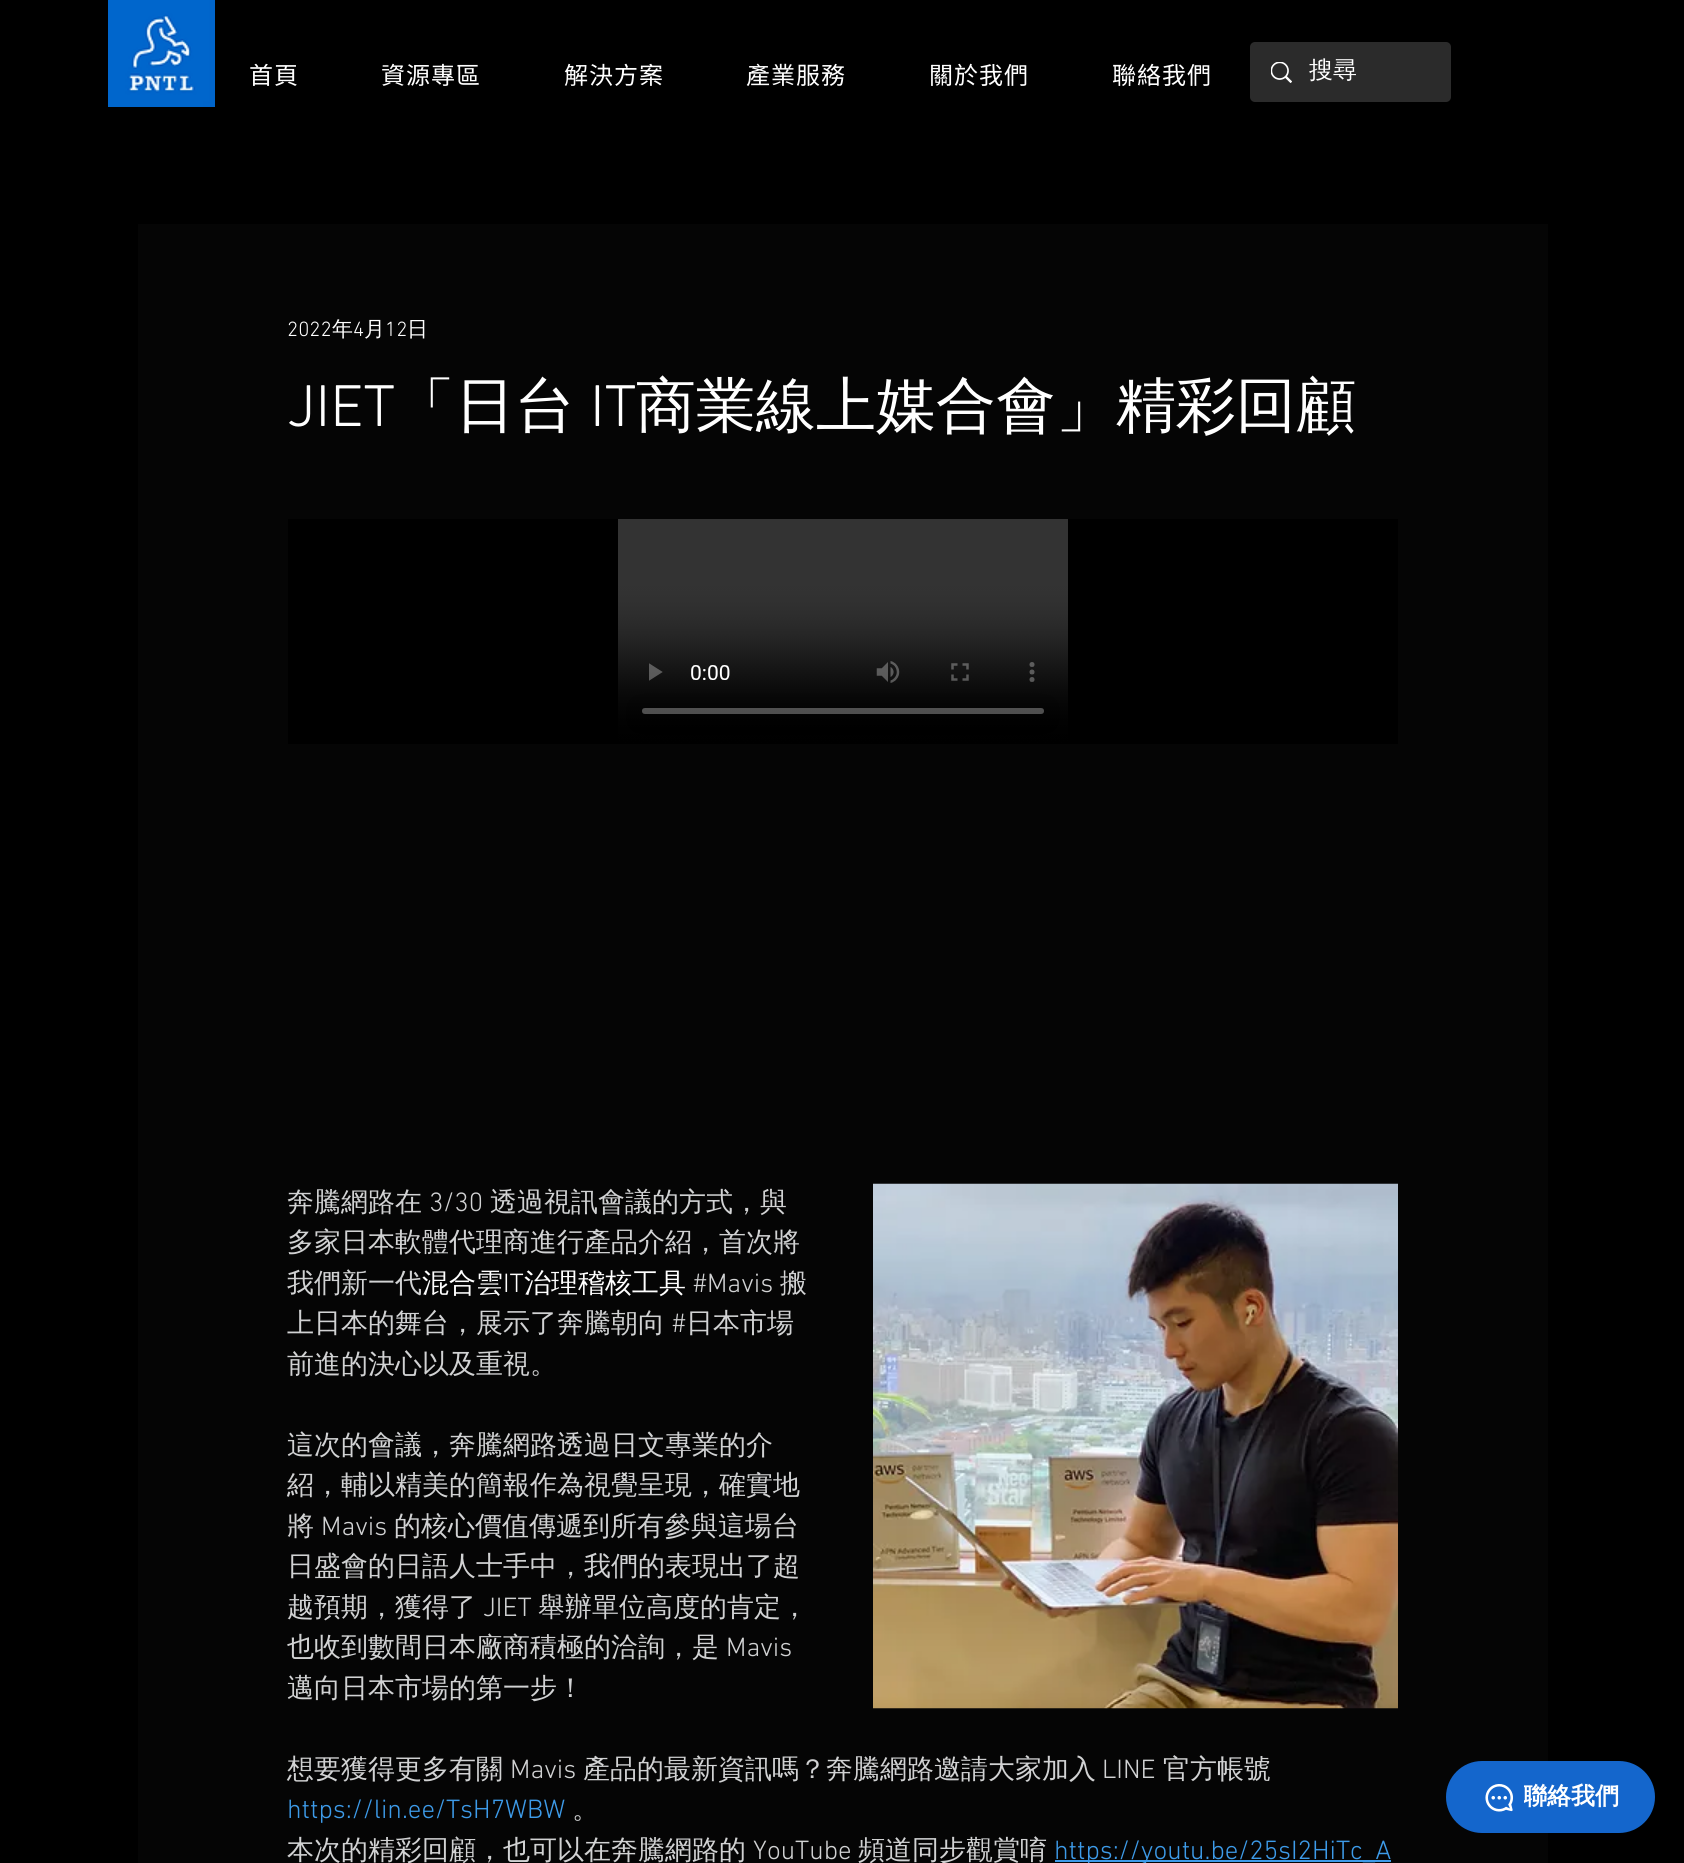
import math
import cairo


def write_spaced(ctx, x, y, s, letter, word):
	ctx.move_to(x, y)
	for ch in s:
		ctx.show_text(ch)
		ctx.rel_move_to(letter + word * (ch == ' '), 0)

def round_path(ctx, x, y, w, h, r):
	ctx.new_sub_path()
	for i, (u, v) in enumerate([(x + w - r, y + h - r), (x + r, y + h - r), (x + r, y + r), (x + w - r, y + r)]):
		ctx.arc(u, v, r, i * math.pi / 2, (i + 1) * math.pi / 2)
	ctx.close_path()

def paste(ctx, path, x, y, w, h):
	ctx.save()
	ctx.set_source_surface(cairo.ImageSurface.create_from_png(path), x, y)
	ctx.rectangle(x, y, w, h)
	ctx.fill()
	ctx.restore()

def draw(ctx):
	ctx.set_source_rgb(0, 0, 0)
	ctx.paint()
	paste(ctx, 'media/1.png', 108, 0, 107, 107)
	ctx.select_font_face('Noto Sans TC')
	ctx.set_font_size(24)
	ctx.set_source_rgb(1, 1, 1)
	for x, y, s in [
		(249, 84, '首頁'),
		(381, 84, '資源專區'),
		(564, 84, '解決方案'),
		(746, 84, '產業服務'),
		(929, 84, '關於我們'),
		(1112, 84, '聯絡我們'),
	]:
		write_spaced(ctx, x, y, s, 1, 0)
	ctx.set_source_rgb(0.169, 0.169, 0.169)
	round_path(ctx, 1250, 42, 201, 60, 5)
	ctx.fill()
	paste(ctx, 'media/2.png', 1271, 62, 21, 21)
	ctx.select_font_face('WenQuanYi Zen Hei Medium')
	ctx.set_source_rgb(1, 1, 1)
	ctx.move_to(1309, 78)
	ctx.show_text('搜尋')
	ctx.set_source_rgb(0.02, 0.02, 0.02)
	ctx.rectangle(138, 224, 1410, 1639)
	ctx.fill()
	ctx.select_font_face('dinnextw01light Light')
	ctx.set_font_size(21)
	ctx.set_source_rgb(1, 1, 1)
	ctx.move_to(287, 336)
	ctx.show_text('2022')
	ctx.select_font_face('WenQuanYi Zen Hei Medium')
	ctx.move_to(332, 336)
	ctx.show_text('年')
	ctx.select_font_face('dinnextw01light Light')
	ctx.move_to(353, 336)
	ctx.show_text('4')
	ctx.select_font_face('WenQuanYi Zen Hei Medium')
	ctx.move_to(364, 336)
	ctx.show_text('月')
	ctx.select_font_face('dinnextw01light Light')
	ctx.move_to(385, 336)
	ctx.show_text('12')
	ctx.select_font_face('WenQuanYi Zen Hei Medium')
	ctx.move_to(407, 336)
	ctx.show_text('日')
	ctx.select_font_face('dinnextw01light Light')
	ctx.set_font_size(60)
	ctx.move_to(287, 426)
	ctx.show_text('JIET')
	ctx.select_font_face('WenQuanYi Zen Hei Medium')
	ctx.move_to(395, 426)
	ctx.show_text('「日台')
	ctx.select_font_face('dinnextw01light Light')
	ctx.move_to(590, 426)
	ctx.show_text('IT')
	ctx.select_font_face('WenQuanYi Zen Hei Medium')
	ctx.move_to(636, 426)
	ctx.show_text('商業線上媒合會」精彩回顧')
	paste(ctx, 'media/3.png', 288, 519, 1110, 225)
	ctx.set_font_size(27)
	ctx.set_source_rgb(0.82, 0.824, 0.827)
	ctx.move_to(287, 1211)
	ctx.show_text('奔騰網路在')
	ctx.select_font_face('dinnextw01light Light')
	ctx.move_to(429, 1211)
	ctx.show_text('3/30')
	ctx.select_font_face('WenQuanYi Zen Hei Medium')
	for x, y, s in [
		(490, 1211, '透過視訊會議的方式，與'),
		(287, 1251, '多家日本軟體代理商進行產品介紹，首次將'),
		(287, 1292, '我們新一代'),
	]:
		ctx.move_to(x, y)
		ctx.show_text(s)
	ctx.set_source_rgb(1, 1, 1)
	ctx.move_to(422, 1292)
	ctx.show_text('混合雲')
	ctx.select_font_face('dinnextw01light Light')
	ctx.move_to(503, 1292)
	ctx.show_text('IT')
	ctx.select_font_face('WenQuanYi Zen Hei Medium')
	ctx.move_to(524, 1292)
	ctx.show_text('治理稽核工具')
	ctx.select_font_face('dinnextw01light Light')
	ctx.set_source_rgb(0.82, 0.824, 0.827)
	ctx.move_to(693, 1292)
	ctx.show_text('#Mavis')
	ctx.select_font_face('WenQuanYi Zen Hei Medium')
	ctx.move_to(780, 1292)
	ctx.show_text('搬')
	ctx.move_to(287, 1332)
	ctx.show_text('上日本的舞台，展示了奔騰朝向')
	ctx.select_font_face('dinnextw01light Light')
	ctx.move_to(672, 1332)
	ctx.show_text('#')
	ctx.select_font_face('WenQuanYi Zen Hei Medium')
	ctx.move_to(686, 1332)
	ctx.show_text('日本市場')
	ctx.move_to(287, 1373)
	ctx.show_text('前進的決心以及重視。')
	paste(ctx, 'media/4.png', 873, 1183, 525, 526)
	for x, y, s in [
		(287, 1454, '這次的會議，奔騰網路透過日文專業的介'),
		(287, 1494, '紹，輔以精美的簡報作為視覺呈現，確實地'),
		(287, 1535, '將'),
	]:
		ctx.move_to(x, y)
		ctx.show_text(s)
	ctx.select_font_face('dinnextw01light Light')
	ctx.move_to(321, 1535)
	ctx.show_text('Mavis')
	ctx.select_font_face('WenQuanYi Zen Hei Medium')
	for x, y, s in [
		(394, 1535, '的核心價值傳遞到所有參與這場台'),
		(287, 1575, '日盛會的日語人士手中，我們的表現出了超'),
		(287, 1616, '越預期，獲得了'),
	]:
		ctx.move_to(x, y)
		ctx.show_text(s)
	ctx.select_font_face('dinnextw01light Light')
	ctx.move_to(483, 1616)
	ctx.show_text('JIET')
	ctx.select_font_face('WenQuanYi Zen Hei Medium')
	ctx.move_to(538, 1616)
	ctx.show_text('舉辦單位高度的肯定，')
	ctx.move_to(287, 1656)
	ctx.show_text('也收到數間日本廠商積極的洽詢，是')
	ctx.select_font_face('dinnextw01light Light')
	ctx.move_to(726, 1656)
	ctx.show_text('Mavis')
	ctx.select_font_face('WenQuanYi Zen Hei Medium')
	ctx.move_to(287, 1697)
	ctx.show_text('邁向日本市場的第一步！')
	ctx.move_to(287, 1778)
	ctx.show_text('想要獲得更多有關')
	ctx.select_font_face('dinnextw01light Light')
	ctx.move_to(510, 1778)
	ctx.show_text('Mavis')
	ctx.select_font_face('WenQuanYi Zen Hei Medium')
	ctx.move_to(583, 1778)
	ctx.show_text('產品的最新資訊嗎？奔騰網路邀請大家加入')
	ctx.select_font_face('dinnextw01light Light')
	ctx.move_to(1102, 1778)
	ctx.show_text('LINE')
	ctx.select_font_face('WenQuanYi Zen Hei Medium')
	ctx.move_to(1163, 1778)
	ctx.show_text('官方帳號')
	ctx.select_font_face('dinnextw01light Light')
	ctx.set_source_rgb(0.239, 0.608, 0.914)
	ctx.move_to(287, 1818)
	ctx.show_text('https://lin.ee/TsH7WBW')
	ctx.select_font_face('WenQuanYi Zen Hei Medium')
	ctx.set_source_rgb(0.82, 0.824, 0.827)
	ctx.move_to(572, 1818)
	ctx.show_text('。')
	ctx.move_to(287, 1859)
	ctx.show_text('本次的精彩回顧，也可以在奔騰網路的')
	ctx.select_font_face('dinnextw01light Light')
	ctx.move_to(753, 1859)
	ctx.show_text('YouTube')
	ctx.select_font_face('WenQuanYi Zen Hei Medium')
	ctx.move_to(858, 1859)
	ctx.show_text('頻道同步觀賞唷')
	ctx.set_source_rgb(0.239, 0.608, 0.914)
	ctx.rectangle(1055, 1860, 336, 2)
	ctx.fill()
	ctx.select_font_face('dinnextw01light Light')
	ctx.move_to(1054, 1859)
	ctx.show_text('https://youtu.be/25sI2HiTc_A')
	ctx.set_source_rgb(0.082, 0.4, 0.8)
	round_path(ctx, 1446, 1761, 209, 72, 36)
	ctx.fill()
	paste(ctx, 'media/5.png', 1485, 1784, 28, 28)
	ctx.save()
	ctx.rectangle(1524, 1782, 96, 32)
	ctx.clip()
	ctx.select_font_face('WenQuanYi Zen Hei', cairo.FONT_SLANT_NORMAL, cairo.FONT_WEIGHT_BOLD)
	ctx.set_font_size(24)
	ctx.set_source_rgb(1, 1, 1)
	ctx.move_to(1523, 1804)
	ctx.show_text('聯絡我們')
	ctx.restore()


surface = cairo.ImageSurface(cairo.FORMAT_RGB24, 1684, 1863)
ctx = cairo.Context(surface)
options = cairo.FontOptions()
options.set_hint_metrics(cairo.HINT_METRICS_OFF)
options.set_hint_style(cairo.HINT_STYLE_NONE)
ctx.set_font_options(options)
ctx.set_miter_limit(4)
draw(ctx)
surface.write_to_png('image.png')
